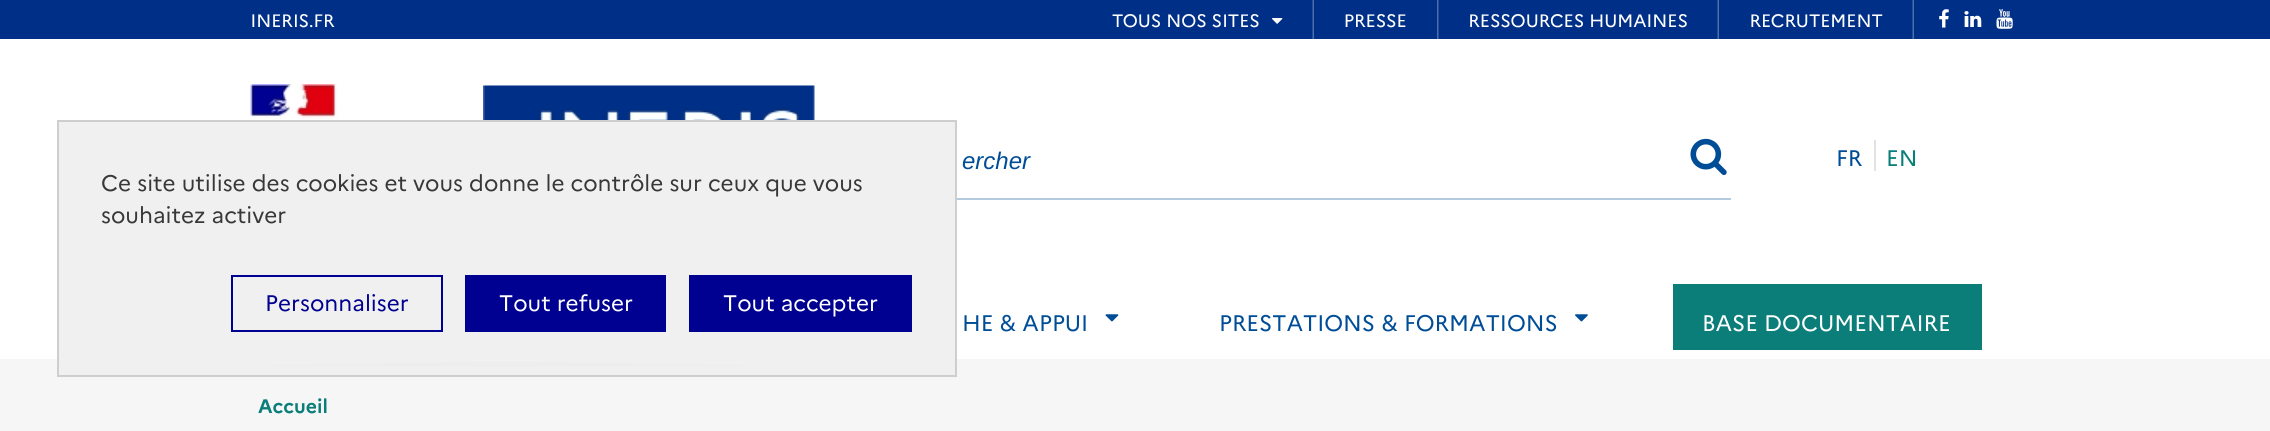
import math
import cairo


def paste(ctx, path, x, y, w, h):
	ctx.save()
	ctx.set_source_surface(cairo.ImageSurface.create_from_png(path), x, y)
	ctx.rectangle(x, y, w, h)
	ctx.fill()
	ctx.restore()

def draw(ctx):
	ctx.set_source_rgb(1, 1, 1)
	ctx.paint()
	paste(ctx, 'media/1.png', 0, 0, 2270, 39)
	paste(ctx, 'media/2.png', 250, 84, 197, 36)
	paste(ctx, 'media/3.png', 483, 85, 332, 35)
	ctx.set_source_rgb(0.702, 0.792, 0.878)
	ctx.rectangle(957, 198, 774, 2)
	ctx.fill()
	ctx.select_font_face('Liberation Sans', cairo.FONT_SLANT_ITALIC)
	ctx.set_font_size(24)
	ctx.set_source_rgb(0, 0.302, 0.592)
	ctx.move_to(962, 169)
	ctx.show_text('ercher')
	paste(ctx, 'media/4.png', 1690, 138, 37, 37)
	ctx.select_font_face('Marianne')
	ctx.set_font_size(22.5)
	ctx.move_to(1836, 166)
	ctx.show_text('FR')
	ctx.set_source_rgb(0.878, 0.89, 0.894)
	ctx.rectangle(1874, 140, 2, 31)
	ctx.fill()
	ctx.set_source_rgb(0.043, 0.494, 0.478)
	ctx.move_to(1886, 166)
	ctx.show_text('EN')
	ctx.set_source_rgb(0, 0.302, 0.592)
	ctx.move_to(962, 331)
	ctx.show_text('HE & APPUI')
	paste(ctx, 'media/5.png', 1105, 314, 14, 8)
	ctx.move_to(1219, 331)
	ctx.show_text('PRESTATIONS & FORMATIONS')
	paste(ctx, 'media/6.png', 1575, 314, 13, 8)
	ctx.set_source_rgb(0.043, 0.494, 0.478)
	ctx.rectangle(1673, 284, 309, 66)
	ctx.fill()
	ctx.set_source_rgb(1, 1, 1)
	ctx.move_to(1702, 331)
	ctx.show_text('BASE DOCUMENTAIRE')
	ctx.set_source_rgb(0.961, 0.961, 0.961)
	ctx.rectangle(0, 359, 2270, 72)
	ctx.fill()
	ctx.select_font_face('Marianne', cairo.FONT_SLANT_NORMAL, cairo.FONT_WEIGHT_BOLD)
	ctx.set_font_size(19.5)
	ctx.set_source_rgb(0.043, 0.494, 0.478)
	ctx.move_to(258, 413)
	ctx.show_text('Accueil')
	ctx.set_source_rgb(0.941, 0.941, 0.941)
	ctx.rectangle(59, 129, 896, 233)
	ctx.fill()
	gradient = cairo.RadialGradient(0, 0, 0, 0, 0, 1)
	gradient.set_matrix(cairo.Matrix(1 / 450, 0, 0, 1 / 15, -1 * 507 / 450, -1 * 377 / 15))
	gradient.add_color_stop_rgba(0, 0.537, 0.537, 0.537, 1)
	gradient.add_color_stop_rgba(1, 0.941, 0.941, 0.941, 1)
	ctx.set_source(gradient)
	ctx.rectangle(59, 362, 896, 5)
	ctx.fill()
	gradient = cairo.LinearGradient(507, 349, 507, 377)
	gradient.add_color_stop_rgba(0, 0.941, 0.941, 0.941, 0)
	gradient.add_color_stop_rgba(0.66, 0.941, 0.941, 0.941, 1)
	ctx.set_source(gradient)
	ctx.rectangle(59, 363, 896, 12)
	ctx.fill()
	gradient = cairo.LinearGradient(507, 120, 507, 147)
	gradient.add_color_stop_rgba(0.33, 0.941, 0.941, 0.941, 1)
	gradient.add_color_stop_rgba(1, 0.941, 0.941, 0.941, 0)
	ctx.set_source(gradient)
	ctx.rectangle(59, 122, 896, 7)
	ctx.fill()
	ctx.rectangle(58, 121, 898, 255)
	ctx.set_source_rgb(0.808, 0.808, 0.808)
	ctx.stroke()
	ctx.select_font_face('Marianne')
	ctx.set_font_size(22.5)
	ctx.set_source_rgb(0.22, 0.22, 0.22)
	ctx.move_to(101, 191)
	ctx.show_text('Ce site utilise des cookies et vous donne le contrôle sur ceux que vous')
	ctx.move_to(101, 223)
	ctx.show_text('souhaitez activer')
	ctx.rectangle(232, 276, 210, 55)
	ctx.set_source_rgb(0, 0, 0.569)
	ctx.stroke()
	ctx.move_to(265, 311)
	ctx.show_text('Personnaliser')
	ctx.rectangle(465, 275, 201, 57)
	ctx.fill()
	ctx.set_source_rgb(1, 1, 1)
	ctx.move_to(499, 311)
	ctx.show_text('Tout refuser')
	ctx.set_source_rgb(0, 0, 0.569)
	ctx.rectangle(689, 275, 223, 57)
	ctx.fill()
	ctx.set_source_rgb(1, 1, 1)
	ctx.move_to(723, 311)
	ctx.show_text('Tout accepter')


surface = cairo.ImageSurface(cairo.FORMAT_RGB24, 2270, 431)
ctx = cairo.Context(surface)
options = cairo.FontOptions()
options.set_hint_metrics(cairo.HINT_METRICS_OFF)
options.set_hint_style(cairo.HINT_STYLE_NONE)
ctx.set_font_options(options)
ctx.set_miter_limit(4)
draw(ctx)
surface.write_to_png('image.png')
